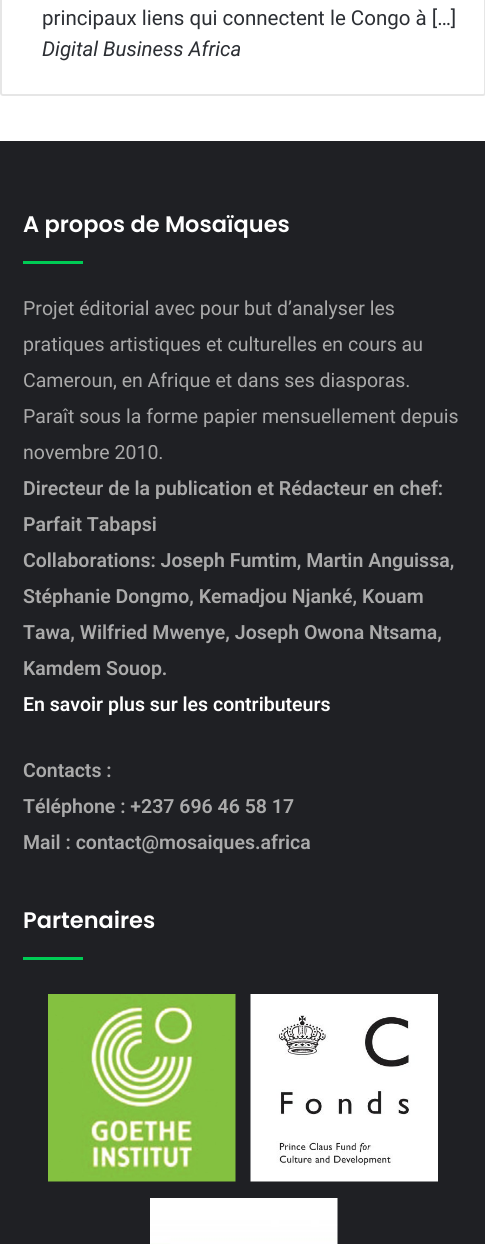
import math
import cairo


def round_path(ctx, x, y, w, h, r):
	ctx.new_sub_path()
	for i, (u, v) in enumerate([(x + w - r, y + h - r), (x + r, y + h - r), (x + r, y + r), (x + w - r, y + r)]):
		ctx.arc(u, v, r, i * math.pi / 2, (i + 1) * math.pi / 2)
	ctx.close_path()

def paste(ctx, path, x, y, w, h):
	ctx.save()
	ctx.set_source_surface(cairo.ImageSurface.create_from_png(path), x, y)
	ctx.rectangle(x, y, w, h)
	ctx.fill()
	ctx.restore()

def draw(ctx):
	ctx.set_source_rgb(1, 1, 1)
	ctx.paint()
	round_path(ctx, 1, -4, 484, 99, 2)
	ctx.set_source_rgb(0.902, 0.902, 0.902)
	ctx.stroke()
	ctx.select_font_face('Roboto')
	ctx.set_font_size(20.5)
	ctx.set_source_rgb(0.173, 0.184, 0.204)
	ctx.move_to(42, 25)
	ctx.show_text('principaux liens qui connectent le Congo à […]')
	ctx.select_font_face('Roboto', cairo.FONT_SLANT_ITALIC)
	ctx.move_to(42, 56)
	ctx.show_text('Digital Business Africa')
	ctx.set_source_rgb(0.122, 0.125, 0.141)
	ctx.rectangle(0, 141, 485, 1103)
	ctx.fill()
	ctx.select_font_face('Poppins SemiBold')
	ctx.set_font_size(22.5)
	ctx.set_source_rgb(1, 1, 1)
	ctx.move_to(23, 232)
	ctx.show_text('A propos de Mosaïques')
	ctx.set_source_rgb(0, 0.8, 0.333)
	ctx.rectangle(23, 261, 60, 3)
	ctx.fill()
	ctx.select_font_face('Roboto')
	ctx.set_font_size(19.5)
	ctx.set_source_rgb(0.667, 0.667, 0.667)
	for x, y, s in [
		(23, 315, 'Projet éditorial avec pour but d’analyser les'),
		(23, 351, 'pratiques artistiques et culturelles en cours au'),
		(23, 387, 'Cameroun, en Afrique et dans ses diasporas.'),
		(23, 423, 'Paraît sous la forme papier mensuellement depuis'),
		(23, 459, 'novembre 2010.'),
	]:
		ctx.move_to(x, y)
		ctx.show_text(s)
	ctx.select_font_face('Roboto SemiBold')
	for x, y, s in [
		(23, 495, 'Directeur de la publication et Rédacteur en chef:'),
		(23, 531, 'Parfait Tabapsi'),
		(23, 567, 'Collaborations: Joseph Fumtim, Martin Anguissa,'),
		(23, 603, 'Stéphanie Dongmo, Kemadjou Njanké, Kouam'),
		(23, 639, 'Tawa, Wilfried Mwenye, Joseph Owona Ntsama,'),
		(23, 675, 'Kamdem Souop.'),
	]:
		ctx.move_to(x, y)
		ctx.show_text(s)
	ctx.set_source_rgb(1, 1, 1)
	ctx.move_to(23, 711)
	ctx.show_text('En savoir plus sur les contributeurs')
	ctx.set_source_rgb(0.667, 0.667, 0.667)
	for x, y, s in [
		(23, 777, 'Contacts :'),
		(23, 813, 'Téléphone : +237 696 46 58 17'),
		(23, 849, 'Mail : contact@mosaiques.africa'),
	]:
		ctx.move_to(x, y)
		ctx.show_text(s)
	ctx.select_font_face('Poppins SemiBold')
	ctx.set_font_size(22.5)
	ctx.set_source_rgb(1, 1, 1)
	ctx.move_to(23, 928)
	ctx.show_text('Partenaires')
	ctx.set_source_rgb(0, 0.8, 0.333)
	ctx.rectangle(23, 957, 60, 3)
	ctx.fill()
	paste(ctx, 'media/1.png', 48, 994, 188, 188)
	paste(ctx, 'media/2.png', 250, 994, 188, 188)
	paste(ctx, 'media/3.png', 150, 1198, 188, 46)


surface = cairo.ImageSurface(cairo.FORMAT_RGB24, 485, 1244)
ctx = cairo.Context(surface)
options = cairo.FontOptions()
options.set_hint_metrics(cairo.HINT_METRICS_OFF)
options.set_hint_style(cairo.HINT_STYLE_NONE)
ctx.set_font_options(options)
ctx.set_miter_limit(4)
draw(ctx)
surface.write_to_png('image.png')
